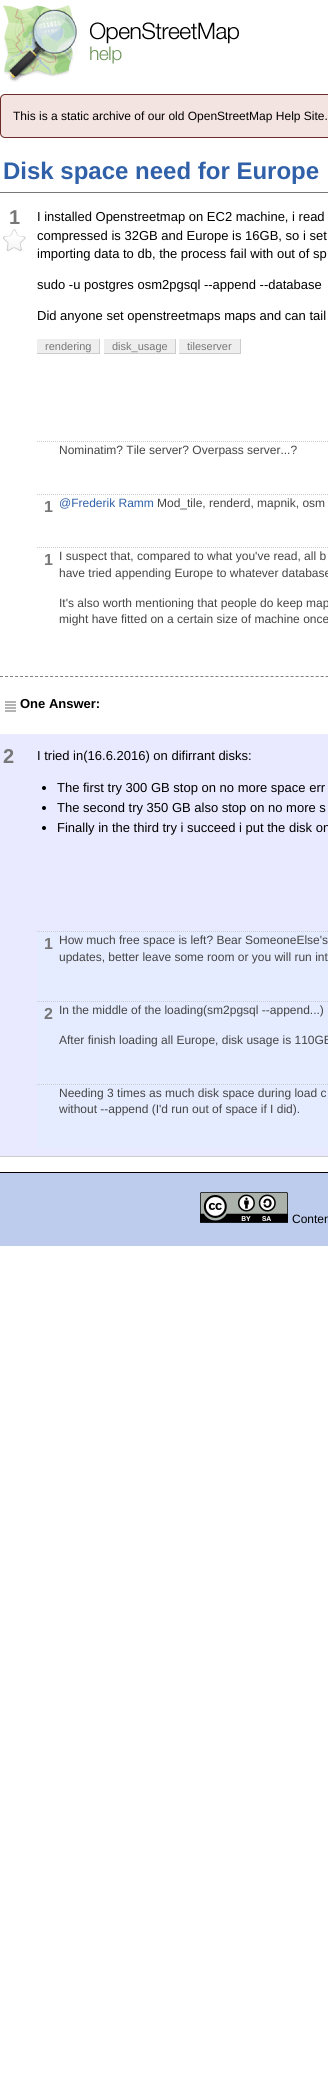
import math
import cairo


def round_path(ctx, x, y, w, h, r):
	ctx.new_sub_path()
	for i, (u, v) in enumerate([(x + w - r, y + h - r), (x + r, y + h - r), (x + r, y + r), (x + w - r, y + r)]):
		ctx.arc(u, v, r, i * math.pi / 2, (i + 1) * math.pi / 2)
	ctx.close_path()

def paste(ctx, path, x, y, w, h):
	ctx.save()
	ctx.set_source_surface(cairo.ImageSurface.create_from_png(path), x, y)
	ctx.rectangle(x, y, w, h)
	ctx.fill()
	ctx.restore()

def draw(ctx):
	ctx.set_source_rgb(1, 1, 1)
	ctx.paint()
	paste(ctx, 'media/1.png', 3, 5, 236, 77)
	ctx.set_source_rgb(0.953, 0.89, 0.882)
	round_path(ctx, 0.5, 94.5, 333, 43, 4.5)
	ctx.fill_preserve()
	ctx.set_source_rgb(0.42, 0.169, 0.157)
	ctx.set_line_width(1)
	ctx.stroke()
	ctx.select_font_face('Liberation Sans')
	ctx.set_font_size(12)
	ctx.set_source_rgb(0, 0, 0)
	ctx.move_to(13, 120)
	ctx.show_text('This is a static archive of our old OpenStreetMap Help Site.')
	ctx.set_source_rgb(0.467, 0.467, 0.467)
	ctx.rectangle(0, 192, 328, 1)
	ctx.fill()
	ctx.select_font_face('Liberation Sans', cairo.FONT_SLANT_NORMAL, cairo.FONT_WEIGHT_BOLD)
	ctx.set_font_size(24)
	ctx.set_source_rgb(0.188, 0.376, 0.659)
	ctx.move_to(3, 179)
	ctx.show_text('Disk space need for Europe')
	ctx.set_font_size(20)
	ctx.set_source_rgb(0.467, 0.467, 0.467)
	ctx.move_to(9, 224)
	ctx.show_text('1')
	paste(ctx, 'media/2.png', 3, 229, 23, 22)
	ctx.select_font_face('Liberation Sans')
	ctx.set_font_size(13)
	ctx.set_source_rgb(0, 0, 0)
	for x, y, s in [
		(37, 221, 'I installed Openstreetmap on EC2 machine, i read'),
		(37, 240, 'compressed is 32GB and Europe is 16GB, so i set'),
		(37, 258, 'importing data to db, the process fail with out of sp'),
		(37, 289, 'sudo -u postgres osm2pgsql --append --database'),
		(37, 320, 'Did anyone set openstreetmaps maps and can tail'),
	]:
		ctx.move_to(x, y)
		ctx.show_text(s)
	ctx.set_source_rgb(0.933, 0.933, 0.933)
	ctx.rectangle(37, 339, 62, 14)
	ctx.fill()
	ctx.set_font_size(11)
	ctx.set_source_rgb(0.467, 0.467, 0.467)
	ctx.move_to(45, 350)
	ctx.show_text('rendering')
	ctx.set_source_rgb(0.8, 0.8, 0.8)
	ctx.rectangle(99, 339, 1, 15)
	ctx.rectangle(37, 353, 63, 1)
	ctx.fill()
	ctx.set_source_rgb(0.933, 0.933, 0.933)
	ctx.rectangle(104, 339, 71, 14)
	ctx.fill()
	ctx.set_source_rgb(0.467, 0.467, 0.467)
	ctx.move_to(112, 350)
	ctx.show_text('disk_usage')
	ctx.set_source_rgb(0.8, 0.8, 0.8)
	ctx.rectangle(175, 339, 1, 15)
	ctx.rectangle(104, 353, 72, 1)
	ctx.fill()
	ctx.set_source_rgb(0.933, 0.933, 0.933)
	ctx.rectangle(179, 339, 61, 14)
	ctx.fill()
	ctx.set_source_rgb(0.467, 0.467, 0.467)
	ctx.move_to(187, 350)
	ctx.show_text('tileserver')
	ctx.set_source_rgb(0.8, 0.8, 0.8)
	ctx.rectangle(240, 339, 1, 15)
	ctx.fill()
	ctx.rectangle(179, 353, 62, 1)
	ctx.fill()
	ctx.new_path()
	ctx.move_to(37, 441.5)
	ctx.line_to(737, 441.5)
	ctx.set_source_rgb(0.8, 0.8, 0.808)
	ctx.set_dash([1, 1])
	ctx.stroke()
	ctx.set_font_size(12)
	ctx.set_source_rgb(0.267, 0.267, 0.267)
	ctx.move_to(59, 454)
	ctx.show_text('Nominatim? Tile server? Overpass server...?')
	ctx.new_path()
	ctx.move_to(37, 494.5)
	ctx.line_to(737, 494.5)
	ctx.set_source_rgb(0.8, 0.8, 0.808)
	ctx.stroke()
	ctx.select_font_face('Liberation Sans', cairo.FONT_SLANT_NORMAL, cairo.FONT_WEIGHT_BOLD)
	ctx.set_font_size(16)
	ctx.set_source_rgb(0.467, 0.467, 0.467)
	ctx.move_to(44, 512)
	ctx.show_text('1')
	ctx.select_font_face('Liberation Sans')
	ctx.set_font_size(12)
	ctx.set_source_rgb(0.188, 0.376, 0.659)
	ctx.move_to(59, 507)
	ctx.show_text('@Frederik Ramm')
	ctx.set_source_rgb(0.267, 0.267, 0.267)
	ctx.move_to(157, 507)
	ctx.show_text('Mod_tile, renderd, mapnik, osm')
	ctx.new_path()
	ctx.move_to(37, 547.5)
	ctx.line_to(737, 547.5)
	ctx.set_source_rgb(0.8, 0.8, 0.808)
	ctx.stroke()
	ctx.select_font_face('Liberation Sans', cairo.FONT_SLANT_NORMAL, cairo.FONT_WEIGHT_BOLD)
	ctx.set_font_size(16)
	ctx.set_source_rgb(0.467, 0.467, 0.467)
	ctx.move_to(44, 565)
	ctx.show_text('1')
	ctx.select_font_face('Liberation Sans')
	ctx.set_font_size(12)
	ctx.set_source_rgb(0.267, 0.267, 0.267)
	for x, y, s in [
		(59, 560, 'I suspect that, compared to what you\'ve read, all b'),
		(59, 577, 'have tried appending Europe to whatever database'),
		(59, 607, 'It\'s also worth mentioning that people do keep map'),
		(59, 623, 'might have fitted on a certain size of machine once'),
	]:
		ctx.move_to(x, y)
		ctx.show_text(s)
	ctx.new_path()
	ctx.move_to(0, 676.5)
	ctx.line_to(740, 676.5)
	ctx.set_source_rgb(0.502, 0.502, 0.502)
	ctx.set_dash([3, 2.01])
	ctx.stroke()
	paste(ctx, 'media/3.png', 5, 701, 11, 11)
	ctx.select_font_face('Liberation Sans', cairo.FONT_SLANT_NORMAL, cairo.FONT_WEIGHT_BOLD)
	ctx.set_font_size(13)
	ctx.set_source_rgb(0, 0, 0)
	ctx.move_to(20, 708)
	ctx.show_text('One Answer:')
	ctx.set_source_rgb(0.914, 0.914, 1)
	ctx.rectangle(0, 734, 328, 422)
	ctx.fill()
	ctx.set_source_rgb(0.8, 0.8, 0.808)
	ctx.rectangle(0, 1156, 328, 1)
	ctx.fill()
	ctx.set_font_size(20)
	ctx.set_source_rgb(0.467, 0.467, 0.467)
	ctx.move_to(3, 763)
	ctx.show_text('2')
	ctx.select_font_face('Liberation Sans')
	ctx.set_font_size(13)
	ctx.set_source_rgb(0, 0, 0)
	ctx.move_to(37, 760)
	ctx.show_text('I tried in(16.6.2016) on difirrant disks:')
	ctx.new_path()
	ctx.arc(44, 788, 2, 0, 2 * math.pi)
	ctx.fill()
	ctx.move_to(57, 792)
	ctx.show_text('The first try 300 GB stop on no more space err')
	ctx.new_path()
	ctx.arc(44, 808, 2, 0, 2 * math.pi)
	ctx.fill()
	ctx.move_to(57, 812)
	ctx.show_text('The second try 350 GB also stop on no more s')
	ctx.new_path()
	ctx.arc(44, 828, 2, 0, 2 * math.pi)
	ctx.fill()
	ctx.move_to(57, 832)
	ctx.show_text('Finally in the third try i succeed i put the disk on')
	ctx.set_source_rgb(0.902, 0.925, 1)
	ctx.rectangle(37, 931, 291, 218)
	ctx.fill()
	ctx.new_path()
	ctx.move_to(37, 931.5)
	ctx.line_to(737, 931.5)
	ctx.set_source_rgb(0.8, 0.8, 0.808)
	ctx.set_dash([1, 1])
	ctx.stroke()
	ctx.select_font_face('Liberation Sans', cairo.FONT_SLANT_NORMAL, cairo.FONT_WEIGHT_BOLD)
	ctx.set_font_size(16)
	ctx.set_source_rgb(0.467, 0.467, 0.467)
	ctx.move_to(44, 949)
	ctx.show_text('1')
	ctx.select_font_face('Liberation Sans')
	ctx.set_font_size(12)
	ctx.set_source_rgb(0.267, 0.267, 0.267)
	ctx.move_to(59, 944)
	ctx.show_text('How much free space is left? Bear SomeoneElse\'s')
	ctx.move_to(59, 961)
	ctx.show_text('updates, better leave some room or you will run int')
	ctx.new_path()
	ctx.move_to(37, 1001.5)
	ctx.line_to(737, 1001.5)
	ctx.set_source_rgb(0.8, 0.8, 0.808)
	ctx.stroke()
	ctx.select_font_face('Liberation Sans', cairo.FONT_SLANT_NORMAL, cairo.FONT_WEIGHT_BOLD)
	ctx.set_font_size(16)
	ctx.set_source_rgb(0.467, 0.467, 0.467)
	ctx.move_to(44, 1019)
	ctx.show_text('2')
	ctx.select_font_face('Liberation Sans')
	ctx.set_font_size(12)
	ctx.set_source_rgb(0.267, 0.267, 0.267)
	ctx.move_to(59, 1014)
	ctx.show_text('In the middle of the loading(sm2pgsql --append...)')
	ctx.move_to(59, 1044)
	ctx.show_text('After finish loading all Europe, disk usage is 110GB')
	ctx.new_path()
	ctx.move_to(37, 1084.5)
	ctx.line_to(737, 1084.5)
	ctx.set_source_rgb(0.8, 0.8, 0.808)
	ctx.stroke()
	ctx.set_source_rgb(0.267, 0.267, 0.267)
	ctx.move_to(59, 1097)
	ctx.show_text('Needing 3 times as much disk space during load c')
	ctx.move_to(59, 1113)
	ctx.show_text('without --append (I\'d run out of space if I did).')
	ctx.set_source_rgb(0.741, 0.8, 0.929)
	ctx.rectangle(0, 1173, 328, 73)
	ctx.fill()
	ctx.set_source_rgb(0, 0, 0)
	ctx.rectangle(0, 1172, 328, 1)
	ctx.fill()
	paste(ctx, 'media/4.png', 200, 1192, 88, 31)
	ctx.move_to(292, 1223)
	ctx.show_text('Conten')


surface = cairo.ImageSurface(cairo.FORMAT_RGB24, 328, 2092)
ctx = cairo.Context(surface)
options = cairo.FontOptions()
options.set_hint_metrics(cairo.HINT_METRICS_OFF)
options.set_hint_style(cairo.HINT_STYLE_NONE)
ctx.set_font_options(options)
ctx.set_miter_limit(4)
draw(ctx)
surface.write_to_png('image.png')
